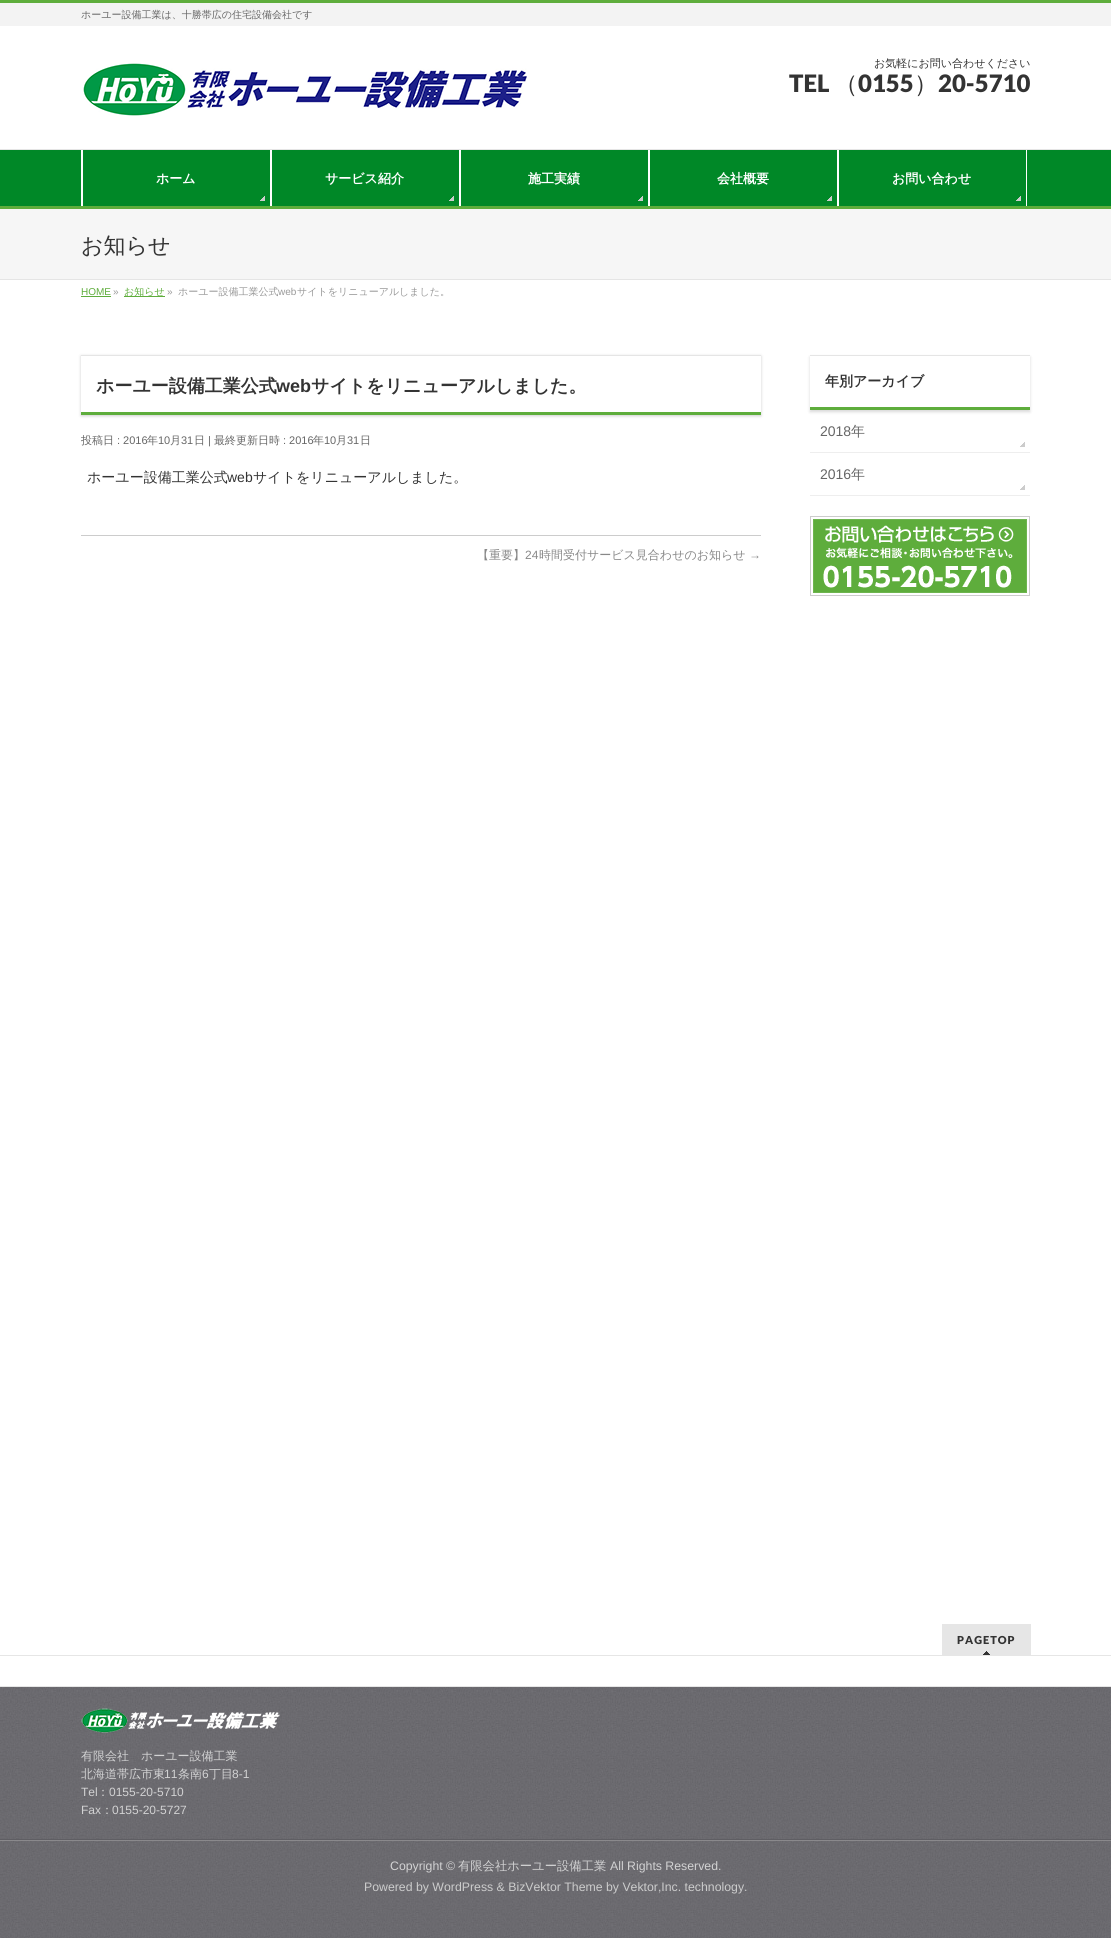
import math
import cairo


def write_spaced(ctx, x, y, s, letter, word):
	ctx.move_to(x, y)
	for ch in s:
		ctx.show_text(ch)
		ctx.rel_move_to(letter + word * (ch == ' '), 0)

def round_path(ctx, x, y, w, h, r):
	ctx.new_sub_path()
	for i, (u, v) in enumerate([(x + w - r, y + h - r), (x + r, y + h - r), (x + r, y + r), (x + w - r, y + r)]):
		ctx.arc(u, v, r, i * math.pi / 2, (i + 1) * math.pi / 2)
	ctx.close_path()

def blur_box(ctx, x, y, w, h, r, blur, alpha):
	ctx.push_group_with_content(cairo.CONTENT_ALPHA)
	ctx.set_operator(cairo.OPERATOR_SOURCE)
	for i in range(15, -16, -2):
		e = blur * i / 6
		if min(w, h) + 2 * e > 0:
			ctx.set_source_rgba(0, 0, 0, alpha * math.erfc((i - 1) / 8.5) / 2)
			round_path(ctx, x - e, y - e, w + 2 * e, h + 2 * e, max(0, min(r + e + blur * .6, min(w, h) / 2 + e)))
			ctx.fill()
	ctx.mask(ctx.pop_group())

def paste(ctx, path, x, y, w, h):
	ctx.save()
	ctx.set_source_surface(cairo.ImageSurface.create_from_png(path), x, y)
	ctx.rectangle(x, y, w, h)
	ctx.fill()
	ctx.restore()

def draw(ctx):
	ctx.set_source_rgb(1, 1, 1)
	ctx.paint()
	ctx.set_source_rgb(0.953, 0.953, 0.953)
	ctx.rectangle(0, 3, 1111, 23)
	ctx.fill()
	ctx.set_source_rgb(0.369, 0.678, 0.235)
	ctx.rectangle(0, 0, 1111, 3)
	ctx.fill()
	ctx.select_font_face('WenQuanYi Zen Hei Medium')
	ctx.set_font_size(10)
	ctx.set_source_rgb(0.4, 0.4, 0.4)
	ctx.move_to(81, 18)
	ctx.show_text('ホーユー設備工業は、十勝帯広の住宅設備会社です')
	paste(ctx, 'media/1.png', 83, 63, 444, 53)
	ctx.set_font_size(11)
	ctx.set_source_rgb(0.2, 0.2, 0.2)
	ctx.move_to(874, 67)
	ctx.show_text('お気軽にお問い合わせください')
	ctx.select_font_face('Lato Black')
	ctx.set_font_size(24)
	ctx.move_to(789, 92)
	ctx.show_text('TEL')
	ctx.select_font_face('WenQuanYi Zen Hei Medium')
	ctx.move_to(834, 92)
	ctx.show_text('（')
	ctx.select_font_face('Lato Black')
	ctx.move_to(858, 92)
	ctx.show_text('0155')
	ctx.select_font_face('WenQuanYi Zen Hei Medium')
	ctx.move_to(914, 92)
	ctx.show_text('）')
	ctx.select_font_face('Lato Black')
	ctx.move_to(938, 92)
	ctx.show_text('20-5710')
	ctx.set_source_rgb(0, 0.533, 0.153)
	ctx.rectangle(0, 150, 1111, 56)
	ctx.fill()
	ctx.set_source_rgb(0.898, 0.898, 0.898)
	ctx.rectangle(0, 149, 1111, 1)
	ctx.fill()
	ctx.set_source_rgb(0.369, 0.678, 0.235)
	ctx.rectangle(0, 206, 1111, 3)
	ctx.fill()
	ctx.set_source_rgb(1, 1, 1)
	ctx.rectangle(81, 150, 2, 56)
	ctx.fill()
	paste(ctx, 'media/2.png', 260, 196, 5, 5)
	ctx.rectangle(270, 150, 2, 56)
	ctx.fill()
	ctx.select_font_face('WenQuanYi Zen Hei', cairo.FONT_SLANT_NORMAL, cairo.FONT_WEIGHT_BOLD)
	ctx.set_font_size(13)
	ctx.move_to(156, 183)
	ctx.show_text('ホーム')
	paste(ctx, 'media/2.png', 449, 196, 5, 5)
	ctx.rectangle(459, 150, 2, 56)
	ctx.fill()
	ctx.move_to(325, 183)
	ctx.show_text('サービス紹介')
	paste(ctx, 'media/2.png', 638, 196, 5, 5)
	ctx.rectangle(648, 150, 2, 56)
	ctx.fill()
	ctx.move_to(528, 183)
	ctx.show_text('施工実績')
	paste(ctx, 'media/2.png', 827, 196, 5, 5)
	ctx.rectangle(837, 150, 2, 56)
	ctx.fill()
	ctx.move_to(717, 183)
	ctx.show_text('会社概要')
	paste(ctx, 'media/2.png', 1016, 196, 5, 5)
	ctx.rectangle(1026, 150, 1, 56)
	ctx.fill()
	ctx.move_to(892, 183)
	ctx.show_text('お問い合わせ')
	ctx.set_source_rgb(0.961, 0.961, 0.961)
	ctx.rectangle(0, 209, 1111, 70)
	ctx.fill()
	ctx.set_source_rgb(0.898, 0.898, 0.898)
	ctx.rectangle(0, 279, 1111, 1)
	ctx.fill()
	ctx.select_font_face('WenQuanYi Zen Hei Medium')
	ctx.set_font_size(22)
	ctx.set_source_rgb(0.2, 0.2, 0.2)
	ctx.move_to(81, 253)
	ctx.show_text('お知らせ')
	ctx.select_font_face('Liberation Sans')
	ctx.set_font_size(10)
	ctx.set_source_rgb(0.369, 0.678, 0.235)
	ctx.move_to(81, 295)
	ctx.show_text('HOME')
	ctx.rectangle(81, 296, 30, 1)
	ctx.fill()
	ctx.set_source_rgb(0.6, 0.6, 0.6)
	ctx.move_to(113, 295)
	ctx.show_text('»')
	ctx.set_source_rgb(0.369, 0.678, 0.235)
	ctx.rectangle(124, 296, 41, 1)
	ctx.fill()
	ctx.select_font_face('WenQuanYi Zen Hei Medium')
	ctx.move_to(124, 295)
	ctx.show_text('お知らせ')
	ctx.select_font_face('Liberation Sans')
	ctx.set_source_rgb(0.6, 0.6, 0.6)
	ctx.move_to(167, 295)
	ctx.show_text('»')
	ctx.select_font_face('WenQuanYi Zen Hei Medium')
	ctx.move_to(178, 295)
	ctx.show_text('ホーユー設備工業公式')
	ctx.select_font_face('Liberation Sans')
	ctx.move_to(278, 295)
	ctx.show_text('web')
	ctx.select_font_face('WenQuanYi Zen Hei Medium')
	ctx.move_to(297, 295)
	ctx.show_text('サイトをリニューアルしました。')
	ctx.save()
	ctx.set_fill_rule(cairo.FILL_RULE_EVEN_ODD)
	ctx.new_path()
	ctx.move_to(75, 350)
	ctx.line_to(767, 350)
	ctx.line_to(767, 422)
	ctx.line_to(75, 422)
	ctx.close_path()
	ctx.move_to(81, 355)
	ctx.line_to(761, 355)
	ctx.line_to(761, 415)
	ctx.line_to(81, 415)
	ctx.close_path()
	ctx.clip()
	ctx.set_source_rgb(0, 0, 0)
	blur_box(ctx, 81, 356, 680, 60, 0, 1.5, 0.2)
	ctx.restore()
	ctx.set_source_rgb(0.898, 0.898, 0.898)
	ctx.rectangle(81, 355, 680, 1)
	ctx.fill()
	ctx.set_source_rgb(0.369, 0.678, 0.235)
	ctx.rectangle(81, 412, 680, 3)
	ctx.fill()
	ctx.select_font_face('WenQuanYi Zen Hei', cairo.FONT_SLANT_NORMAL, cairo.FONT_WEIGHT_BOLD)
	ctx.set_font_size(18)
	ctx.set_source_rgb(0.2, 0.2, 0.2)
	ctx.move_to(96, 392)
	ctx.show_text('ホーユー設備工業公式')
	ctx.select_font_face('Liberation Sans', cairo.FONT_SLANT_NORMAL, cairo.FONT_WEIGHT_BOLD)
	ctx.move_to(276, 392)
	ctx.show_text('web')
	ctx.select_font_face('WenQuanYi Zen Hei', cairo.FONT_SLANT_NORMAL, cairo.FONT_WEIGHT_BOLD)
	ctx.move_to(311, 392)
	ctx.show_text('サイトをリニューアルしました。')
	ctx.select_font_face('WenQuanYi Zen Hei Medium')
	ctx.set_font_size(11)
	ctx.set_source_rgb(0.4, 0.4, 0.4)
	ctx.move_to(81, 444)
	ctx.show_text('投稿日')
	ctx.select_font_face('Liberation Sans')
	ctx.move_to(117, 444)
	ctx.show_text(': 2016')
	ctx.select_font_face('WenQuanYi Zen Hei Medium')
	ctx.move_to(147, 444)
	ctx.show_text('年')
	ctx.select_font_face('Liberation Sans')
	ctx.move_to(158, 444)
	ctx.show_text('10')
	ctx.select_font_face('WenQuanYi Zen Hei Medium')
	ctx.move_to(170, 444)
	ctx.show_text('月')
	ctx.select_font_face('Liberation Sans')
	ctx.move_to(181, 444)
	ctx.show_text('31')
	ctx.select_font_face('WenQuanYi Zen Hei Medium')
	ctx.move_to(194, 444)
	ctx.show_text('日')
	ctx.select_font_face('Liberation Sans')
	ctx.move_to(208, 444)
	ctx.show_text('|')
	ctx.select_font_face('WenQuanYi Zen Hei Medium')
	ctx.move_to(214, 444)
	ctx.show_text('最終更新日時')
	ctx.select_font_face('Liberation Sans')
	ctx.move_to(283, 444)
	ctx.show_text(': 2016')
	ctx.select_font_face('WenQuanYi Zen Hei Medium')
	ctx.move_to(313, 444)
	ctx.show_text('年')
	ctx.select_font_face('Liberation Sans')
	ctx.move_to(324, 444)
	ctx.show_text('10')
	ctx.select_font_face('WenQuanYi Zen Hei Medium')
	ctx.move_to(336, 444)
	ctx.show_text('月')
	ctx.select_font_face('Liberation Sans')
	ctx.move_to(347, 444)
	ctx.show_text('31')
	ctx.select_font_face('WenQuanYi Zen Hei Medium')
	ctx.move_to(360, 444)
	ctx.show_text('日')
	ctx.set_font_size(14)
	ctx.set_source_rgb(0.2, 0.2, 0.2)
	ctx.move_to(87, 482)
	ctx.show_text('ホーユー設備工業公式')
	ctx.select_font_face('Liberation Sans')
	ctx.move_to(227, 482)
	ctx.show_text('web')
	ctx.select_font_face('WenQuanYi Zen Hei Medium')
	ctx.move_to(253, 482)
	ctx.show_text('サイトをリニューアルしました。')
	ctx.set_source_rgb(0.8, 0.8, 0.8)
	ctx.rectangle(81, 535, 680, 1)
	ctx.fill()
	ctx.set_font_size(12)
	ctx.set_source_rgb(0.533, 0.533, 0.533)
	ctx.move_to(477, 559)
	ctx.show_text('【重要】')
	ctx.select_font_face('Liberation Sans')
	ctx.move_to(525, 559)
	ctx.show_text('24')
	ctx.select_font_face('WenQuanYi Zen Hei Medium')
	ctx.move_to(539, 559)
	ctx.show_text('時間受付サービス見合わせのお知らせ')
	ctx.select_font_face('Liberation Sans')
	ctx.move_to(749, 559)
	ctx.show_text('→')
	ctx.save()
	ctx.set_fill_rule(cairo.FILL_RULE_EVEN_ODD)
	ctx.new_path()
	ctx.move_to(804, 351)
	ctx.line_to(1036, 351)
	ctx.line_to(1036, 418)
	ctx.line_to(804, 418)
	ctx.close_path()
	ctx.move_to(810, 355)
	ctx.line_to(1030, 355)
	ctx.line_to(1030, 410)
	ctx.line_to(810, 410)
	ctx.close_path()
	ctx.clip()
	ctx.set_source_rgb(0, 0, 0)
	blur_box(ctx, 810, 357, 220, 55, 0, 1.5, 0.15)
	ctx.restore()
	ctx.set_source_rgb(0.898, 0.898, 0.898)
	ctx.rectangle(810, 355, 220, 1)
	ctx.fill()
	ctx.set_source_rgb(0.369, 0.678, 0.235)
	ctx.rectangle(810, 407, 220, 3)
	ctx.fill()
	ctx.select_font_face('WenQuanYi Zen Hei', cairo.FONT_SLANT_NORMAL, cairo.FONT_WEIGHT_BOLD)
	ctx.set_font_size(14)
	ctx.set_source_rgb(0.2, 0.2, 0.2)
	ctx.move_to(825, 386)
	ctx.show_text('年別アーカイブ')
	ctx.set_source_rgb(0.933, 0.933, 0.933)
	ctx.rectangle(810, 452, 220, 1)
	ctx.fill()
	paste(ctx, 'media/3.png', 1020, 442, 5, 5)
	ctx.select_font_face('Liberation Sans')
	ctx.set_source_rgb(0.4, 0.4, 0.4)
	ctx.move_to(820, 436)
	ctx.show_text('2018')
	ctx.select_font_face('WenQuanYi Zen Hei Medium')
	ctx.move_to(851, 436)
	ctx.show_text('年')
	ctx.set_source_rgb(0.933, 0.933, 0.933)
	ctx.rectangle(810, 495, 220, 1)
	ctx.fill()
	paste(ctx, 'media/3.png', 1020, 485, 5, 5)
	ctx.select_font_face('Liberation Sans')
	ctx.set_source_rgb(0.4, 0.4, 0.4)
	ctx.move_to(820, 479)
	ctx.show_text('2016')
	ctx.select_font_face('WenQuanYi Zen Hei Medium')
	ctx.move_to(851, 479)
	ctx.show_text('年')
	ctx.set_source_rgb(0.369, 0.678, 0.235)
	ctx.rectangle(813, 519, 214, 74)
	ctx.fill()
	paste(ctx, 'media/4.png', 810, 516, 220, 80)
	ctx.set_source_rgb(0.902, 0.902, 0.902)
	ctx.rectangle(942, 1624, 89, 31)
	ctx.fill()
	paste(ctx, 'media/5.png', 983, 1651, 7, 4)
	ctx.select_font_face('Lato Black')
	ctx.set_font_size(11)
	ctx.set_source_rgb(0.2, 0.2, 0.2)
	write_spaced(ctx, 957, 1644, 'PAGETOP', 1, 0)
	ctx.set_source_rgb(0.902, 0.902, 0.902)
	ctx.rectangle(0, 1655, 1111, 1)
	ctx.fill()
	ctx.rectangle(0, 1686, 1111, 1)
	ctx.fill()
	paste(ctx, 'media/6.png', 0, 1687, 1111, 152)
	ctx.set_source_rgb(0.373, 0.369, 0.388)
	ctx.rectangle(0, 1839, 1111, 1)
	ctx.fill()
	paste(ctx, 'media/7.png', 81, 1708, 199, 25)
	ctx.select_font_face('WenQuanYi Zen Hei Medium')
	ctx.set_font_size(12)
	ctx.set_source_rgb(0.824, 0.824, 0.827)
	ctx.move_to(81, 1760)
	ctx.show_text('有限会社　ホーユー設備工業')
	ctx.move_to(81, 1778)
	ctx.show_text('北海道帯広市東')
	ctx.select_font_face('Liberation Sans')
	ctx.move_to(164, 1778)
	ctx.show_text('11')
	ctx.select_font_face('WenQuanYi Zen Hei Medium')
	ctx.move_to(178, 1778)
	ctx.show_text('条南')
	ctx.select_font_face('Liberation Sans')
	ctx.move_to(202, 1778)
	ctx.show_text('6')
	ctx.select_font_face('WenQuanYi Zen Hei Medium')
	ctx.move_to(209, 1778)
	ctx.show_text('丁目')
	ctx.select_font_face('Liberation Sans')
	ctx.move_to(232, 1778)
	ctx.show_text('8-1')
	ctx.move_to(81, 1796)
	ctx.show_text('Tel')
	ctx.select_font_face('WenQuanYi Zen Hei Medium')
	ctx.move_to(97, 1796)
	ctx.show_text('：')
	ctx.select_font_face('Liberation Sans')
	ctx.move_to(109, 1796)
	ctx.show_text('0155-20-5710')
	ctx.move_to(81, 1814)
	ctx.show_text('Fax')
	ctx.select_font_face('WenQuanYi Zen Hei Medium')
	ctx.move_to(101, 1814)
	ctx.show_text('：')
	ctx.select_font_face('Liberation Sans')
	ctx.move_to(112, 1814)
	ctx.show_text('0155-20-5727')
	paste(ctx, 'media/8.png', 0, 1841, 1111, 97)
	ctx.set_source_rgb(0.541, 0.537, 0.549)
	ctx.rectangle(0, 1840, 1111, 1)
	ctx.fill()
	ctx.set_font_size(12.3)
	ctx.set_source_rgb(0.824, 0.824, 0.827)
	ctx.move_to(390, 1870)
	ctx.show_text('Copyright ©')
	ctx.select_font_face('WenQuanYi Zen Hei Medium')
	ctx.move_to(458, 1870)
	ctx.show_text('有限会社ホーユー設備工業')
	ctx.select_font_face('Liberation Sans')
	ctx.move_to(610, 1870)
	ctx.show_text('All Rights Reserved.')
	ctx.set_source_rgb(0.8, 0.8, 0.8)
	ctx.move_to(364, 1891)
	ctx.show_text('Powered by WordPress & BizVektor Theme by Vektor,Inc. technology.')


surface = cairo.ImageSurface(cairo.FORMAT_RGB24, 1111, 1939)
ctx = cairo.Context(surface)
options = cairo.FontOptions()
options.set_hint_metrics(cairo.HINT_METRICS_OFF)
options.set_hint_style(cairo.HINT_STYLE_NONE)
ctx.set_font_options(options)
ctx.set_miter_limit(4)
draw(ctx)
surface.write_to_png('image.png')
